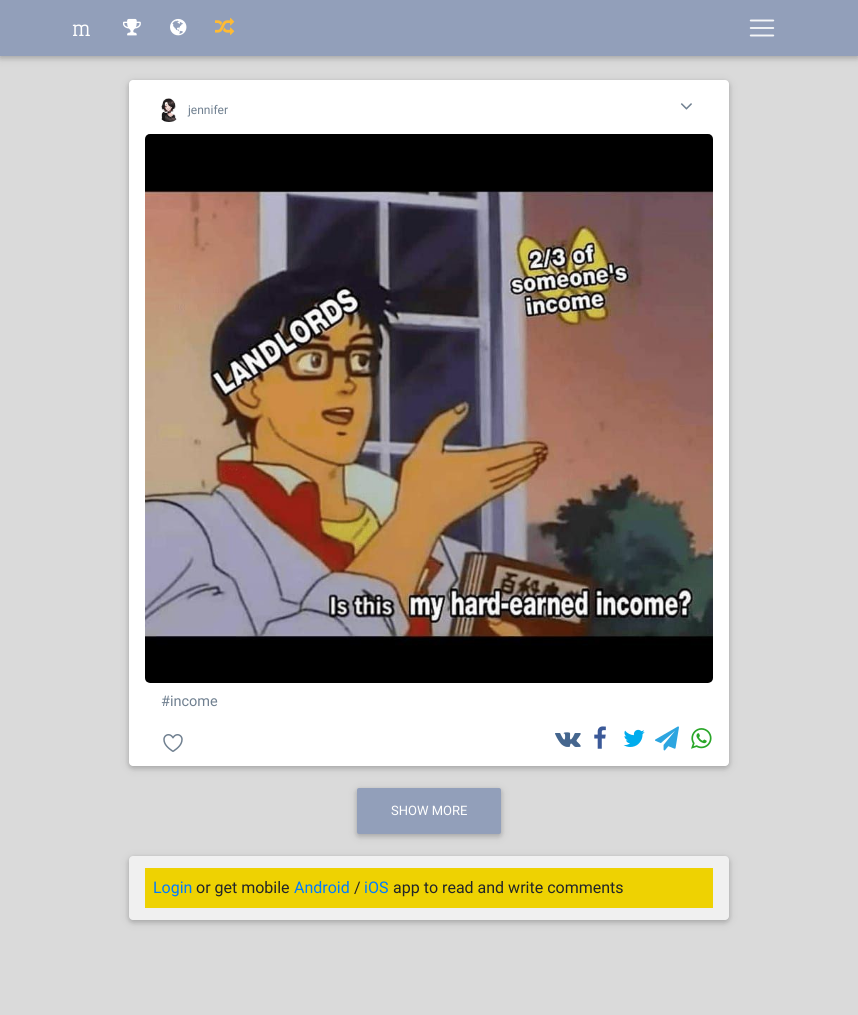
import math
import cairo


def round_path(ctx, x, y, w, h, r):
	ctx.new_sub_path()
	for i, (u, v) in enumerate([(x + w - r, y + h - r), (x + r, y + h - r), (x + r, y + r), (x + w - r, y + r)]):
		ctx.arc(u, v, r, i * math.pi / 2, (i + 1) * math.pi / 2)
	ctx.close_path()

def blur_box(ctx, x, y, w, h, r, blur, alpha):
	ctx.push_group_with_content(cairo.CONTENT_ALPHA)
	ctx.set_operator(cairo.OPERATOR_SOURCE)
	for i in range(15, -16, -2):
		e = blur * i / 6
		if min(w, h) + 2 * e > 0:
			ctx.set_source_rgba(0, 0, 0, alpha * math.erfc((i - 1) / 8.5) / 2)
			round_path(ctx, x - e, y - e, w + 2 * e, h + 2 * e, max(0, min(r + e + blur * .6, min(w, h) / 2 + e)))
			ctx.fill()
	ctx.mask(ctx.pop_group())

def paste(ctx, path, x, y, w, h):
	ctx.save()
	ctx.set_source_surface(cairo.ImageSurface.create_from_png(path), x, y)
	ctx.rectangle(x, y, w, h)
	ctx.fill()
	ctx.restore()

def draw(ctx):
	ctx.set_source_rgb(0.855, 0.855, 0.855)
	ctx.paint()
	ctx.set_source_rgb(0, 0, 0)
	blur_box(ctx, 0, 2, 858, 56, 0, 5, 0.12)
	blur_box(ctx, 0, 2, 858, 56, 0, 2.5, 0.16)
	ctx.set_source_rgb(0.573, 0.624, 0.729)
	ctx.rectangle(0, 0, 858, 56)
	ctx.fill()
	ctx.select_font_face('Kreon Light')
	ctx.set_font_size(24)
	ctx.set_source_rgb(1, 1, 1)
	ctx.move_to(72, 36)
	ctx.show_text('m')
	paste(ctx, 'media/1.png', 123, 18, 18, 18)
	paste(ctx, 'media/2.png', 170, 18, 17, 18)
	paste(ctx, 'media/3.png', 215, 17, 20, 18)
	paste(ctx, 'media/4.png', 749, 19, 26, 18)
	ctx.set_source_rgb(0, 0, 0)
	blur_box(ctx, 129, 82, 600, 686, 4, 5, 0.12)
	blur_box(ctx, 129, 82, 600, 686, 4, 2.5, 0.16)
	ctx.set_source_rgb(1, 1, 1)
	round_path(ctx, 129, 80, 600, 686, 4)
	ctx.fill()
	paste(ctx, 'media/5.png', 161, 98, 16, 24)
	ctx.select_font_face('Roboto')
	ctx.set_font_size(12)
	ctx.set_source_rgb(0.439, 0.502, 0.565)
	ctx.move_to(188, 114)
	ctx.show_text('jennifer')
	paste(ctx, 'media/6.png', 680, 103, 12, 7)
	paste(ctx, 'media/7.png', 145, 134, 568, 549)
	ctx.set_font_size(14.5)
	ctx.move_to(161, 706)
	ctx.show_text('#income')
	paste(ctx, 'media/8.png', 163, 734, 20, 18)
	paste(ctx, 'media/9.png', 555, 732, 26, 15)
	paste(ctx, 'media/10.png', 594, 726, 12, 23)
	paste(ctx, 'media/11.png', 623, 729, 22, 18)
	paste(ctx, 'media/12.png', 655, 726, 24, 25)
	paste(ctx, 'media/13.png', 691, 728, 21, 21)
	ctx.set_source_rgb(0, 0, 0)
	blur_box(ctx, 357, 790, 144, 46, 2, 5, 0.12)
	blur_box(ctx, 357, 790, 144, 46, 2, 2.5, 0.16)
	ctx.set_source_rgb(0.573, 0.624, 0.729)
	round_path(ctx, 357, 788, 144, 46, 2)
	ctx.fill()
	ctx.set_font_size(13)
	ctx.set_source_rgb(1, 1, 1)
	ctx.move_to(391, 815)
	ctx.show_text('SHOW MORE')
	ctx.set_source_rgb(0, 0, 0)
	blur_box(ctx, 129, 858, 600, 64, 4, 5, 0.12)
	blur_box(ctx, 129, 858, 600, 64, 4, 2.5, 0.16)
	ctx.set_source_rgb(0.941, 0.941, 0.941)
	round_path(ctx, 129, 856, 600, 64, 4)
	ctx.fill()
	ctx.set_source_rgb(0.933, 0.824, 0.008)
	ctx.rectangle(145, 868, 568, 40)
	ctx.fill()
	ctx.set_font_size(16)
	ctx.set_source_rgb(0, 0.482, 1)
	ctx.move_to(153, 893)
	ctx.show_text('Login')
	ctx.set_source_rgb(0.129, 0.145, 0.161)
	ctx.move_to(196, 893)
	ctx.show_text('or get mobile')
	ctx.set_source_rgb(0, 0.482, 1)
	ctx.move_to(294, 893)
	ctx.show_text('Android')
	ctx.set_source_rgb(0.129, 0.145, 0.161)
	ctx.move_to(354, 893)
	ctx.show_text('/')
	ctx.set_source_rgb(0, 0.482, 1)
	ctx.move_to(364, 893)
	ctx.show_text('iOS')
	ctx.set_source_rgb(0.129, 0.145, 0.161)
	ctx.move_to(393, 893)
	ctx.show_text('app to read and write comments')


surface = cairo.ImageSurface(cairo.FORMAT_RGB24, 858, 1015)
ctx = cairo.Context(surface)
options = cairo.FontOptions()
options.set_hint_metrics(cairo.HINT_METRICS_OFF)
options.set_hint_style(cairo.HINT_STYLE_NONE)
ctx.set_font_options(options)
ctx.set_miter_limit(4)
draw(ctx)
surface.write_to_png('image.png')
